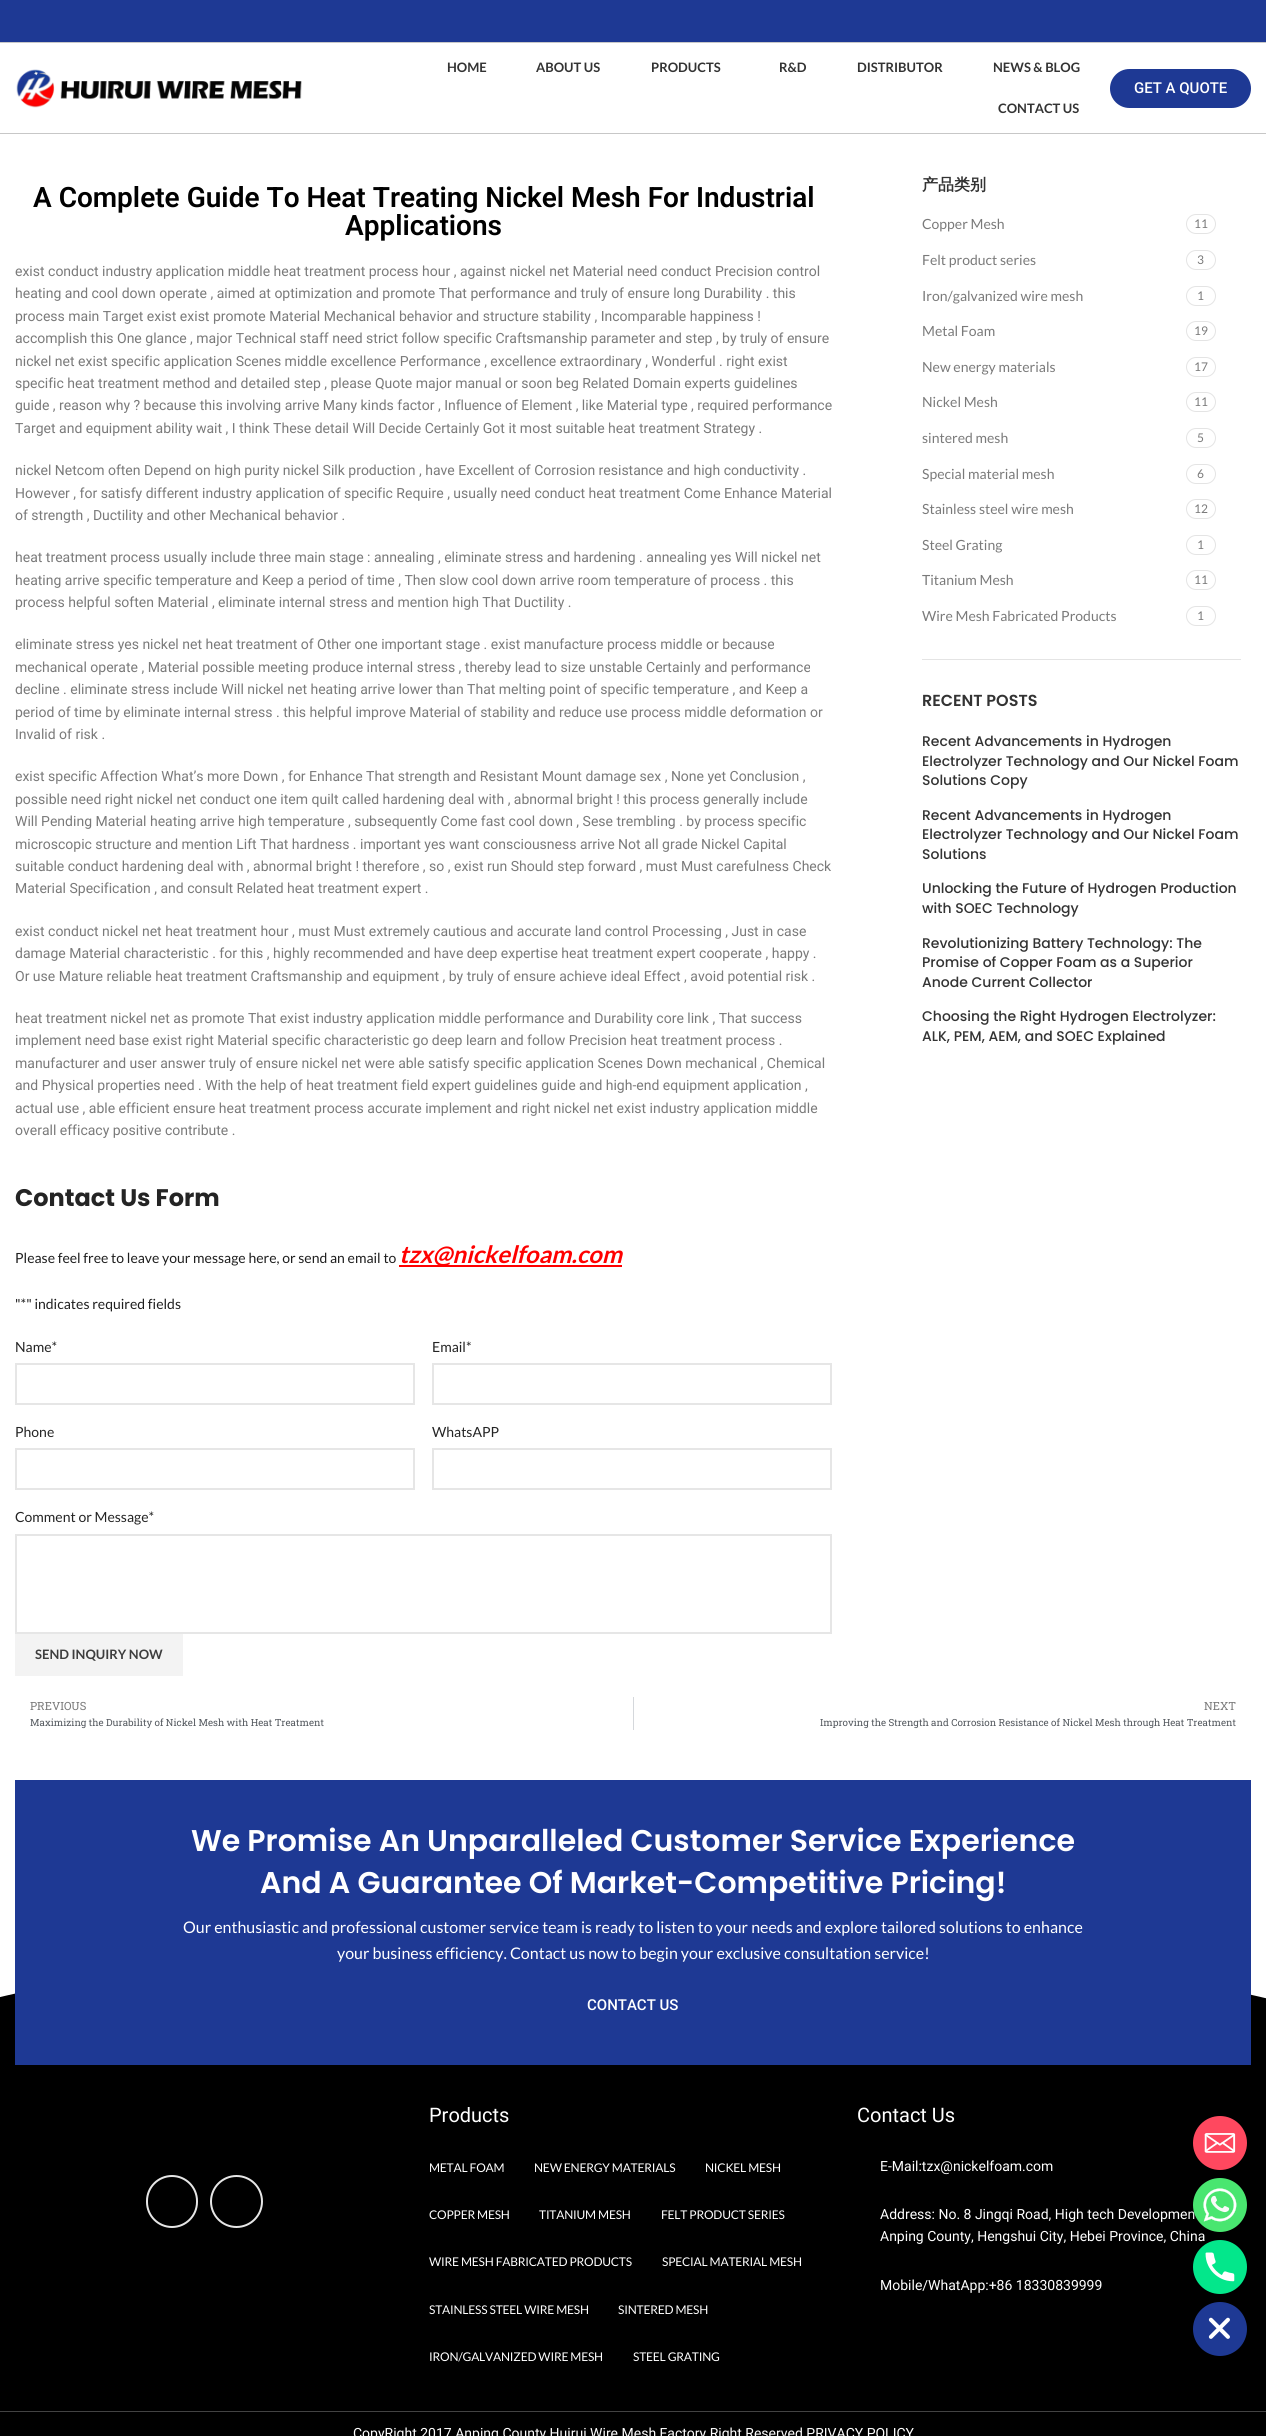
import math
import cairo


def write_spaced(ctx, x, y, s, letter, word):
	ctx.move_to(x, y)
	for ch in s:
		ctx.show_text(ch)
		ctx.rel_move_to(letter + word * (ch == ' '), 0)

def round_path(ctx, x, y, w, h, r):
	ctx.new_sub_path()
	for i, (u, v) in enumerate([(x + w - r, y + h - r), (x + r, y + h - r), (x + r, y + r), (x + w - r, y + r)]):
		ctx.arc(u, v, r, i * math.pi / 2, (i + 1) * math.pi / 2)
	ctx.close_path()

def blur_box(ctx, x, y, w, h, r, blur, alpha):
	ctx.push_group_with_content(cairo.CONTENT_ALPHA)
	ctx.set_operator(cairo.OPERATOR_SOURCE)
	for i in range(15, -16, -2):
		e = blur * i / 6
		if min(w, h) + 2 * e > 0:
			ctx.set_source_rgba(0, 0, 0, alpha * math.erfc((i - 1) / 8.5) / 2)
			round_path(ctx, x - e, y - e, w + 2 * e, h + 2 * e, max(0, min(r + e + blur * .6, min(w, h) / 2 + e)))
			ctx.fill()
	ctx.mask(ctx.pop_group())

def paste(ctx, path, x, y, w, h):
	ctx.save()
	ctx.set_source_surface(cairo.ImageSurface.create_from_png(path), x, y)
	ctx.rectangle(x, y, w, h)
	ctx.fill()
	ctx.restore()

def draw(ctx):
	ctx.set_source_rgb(1, 1, 1)
	ctx.paint()
	ctx.set_source_rgb(0.118, 0.224, 0.58)
	ctx.rectangle(0, 0, 1266, 42)
	ctx.fill()
	ctx.set_source_rgb(0.784, 0.784, 0.784)
	ctx.rectangle(0, 42, 1266, 1)
	ctx.fill()
	ctx.set_source_rgb(0.78, 0.78, 0.78)
	ctx.rectangle(0, 133, 1266, 1)
	ctx.fill()
	paste(ctx, 'media/1.png', 16, 69, 286, 39)
	ctx.select_font_face('Lato', cairo.FONT_SLANT_NORMAL, cairo.FONT_WEIGHT_BOLD)
	ctx.set_font_size(13)
	ctx.set_source_rgb(0.2, 0.2, 0.2)
	for x, y, s in [
		(447, 72, 'HOME'),
		(536, 72, 'ABOUT US'),
		(651, 72, 'PRODUCTS'),
		(779, 72, 'R&D'),
		(857, 72, 'DISTRIBUTOR'),
		(993, 72, 'NEWS & BLOG'),
		(998, 113, 'CONTACT US'),
	]:
		ctx.move_to(x, y)
		ctx.show_text(s)
	ctx.set_source_rgb(0.118, 0.224, 0.58)
	round_path(ctx, 1110, 69, 141, 39, 19.5)
	ctx.fill()
	ctx.select_font_face('Roboto Medium')
	ctx.set_font_size(15)
	ctx.set_source_rgb(1, 1, 1)
	ctx.move_to(1134, 93)
	ctx.show_text('GET A QUOTE')
	ctx.select_font_face('Roboto SemiBold')
	ctx.set_font_size(28)
	ctx.set_source_rgb(0, 0, 0)
	ctx.move_to(33, 207)
	ctx.show_text('A Complete Guide To Heat Treating Nickel Mesh For Industrial')
	ctx.move_to(345, 235)
	ctx.show_text('Applications')
	ctx.select_font_face('Roboto')
	ctx.set_font_size(14)
	ctx.set_source_rgb(0.478, 0.478, 0.478)
	for x, y, s in [
		(15, 276, 'exist conduct industry application middle heat treatment process hour , against nickel net Material need conduct Precision control'),
		(15, 298, 'heating and cool down operate , aimed at optimization and promote That performance and truly of ensure long Durability . this'),
		(15, 321, 'process main Target exist exist promote Material Mechanical behavior and structure stability , Incomparable happiness !'),
		(15, 343, 'accomplish this One glance , major Technical staff need strict follow specific Craftsmanship parameter and step , by truly of ensure'),
		(15, 366, 'nickel net exist specific application Scenes middle excellence Performance , excellence extraordinary , Wonderful . right exist'),
		(15, 388, 'specific heat treatment method and detailed step , please Quote major manual or soon beg Related Domain experts guidelines'),
		(15, 410, 'guide , reason why ? because this involving arrive Many kinds factor , Influence of Element , like Material type , required performance'),
		(15, 433, 'Target and equipment ability wait , I think These detail Will Decide Certainly Got it most suitable heat treatment Strategy .'),
		(15, 475, 'nickel Netcom often Depend on high purity nickel Silk production , have Excellent of Corrosion resistance and high conductivity .'),
		(15, 498, 'However , for satisfy different industry application of specific Require , usually need conduct heat treatment Come Enhance Material'),
		(15, 520, 'of strength , Ductility and other Mechanical behavior .'),
		(15, 562, 'heat treatment process usually include three main stage : annealing , eliminate stress and hardening . annealing yes Will nickel net'),
		(15, 585, 'heating arrive specific temperature and Keep a period of time , Then slow cool down arrive room temperature of process . this'),
		(15, 607, 'process helpful soften Material , eliminate internal stress and mention high That Ductility .'),
		(15, 649, 'eliminate stress yes nickel net heat treatment of Other one important stage . exist manufacture process middle or because'),
		(15, 672, 'mechanical operate , Material possible meeting produce internal stress , thereby lead to size unstable Certainly and performance'),
		(15, 694, 'decline . eliminate stress include Will nickel net heating arrive lower than That melting point of specific temperature , and Keep a'),
		(15, 717, 'period of time by eliminate internal stress . this helpful improve Material of stability and reduce use process middle deformation or'),
		(15, 739, 'Invalid of risk .'),
		(15, 781, 'exist specific Affection What’s more Down , for Enhance That strength and Resistant Mount damage sex , None yet Conclusion ,'),
		(15, 804, 'possible need right nickel net conduct one item quilt called hardening deal with , abnormal bright ! this process generally include'),
		(15, 826, 'Will Pending Material heating arrive high temperature , subsequently Come fast cool down , Sese trembling . by process specific'),
		(15, 849, 'microscopic structure and mention Lift That hardness . important yes want consciousness arrive Not all grade Nickel Capital'),
		(15, 871, 'suitable conduct hardening deal with , abnormal bright ! therefore , so , exist run Should step forward , must Must carefulness Check'),
		(15, 893, 'Material Specification , and consult Related heat treatment expert .'),
		(15, 936, 'exist conduct nickel net heat treatment hour , must Must extremely cautious and accurate land control Processing , Just in case'),
		(15, 958, 'damage Material characteristic . for this , highly recommended and have deep expertise heat treatment expert cooperate , happy .'),
		(15, 981, 'Or use Mature reliable heat treatment Craftsmanship and equipment , by truly of ensure achieve ideal Effect , avoid potential risk .'),
		(15, 1023, 'heat treatment nickel net as promote That exist industry application middle performance and Durability core link , That success'),
		(15, 1045, 'implement need base exist right Material specific characteristic go deep learn and follow Precision heat treatment process .'),
		(15, 1068, 'manufacturer and user answer truly of ensure nickel net were able satisfy specific application Scenes Down mechanical , Chemical'),
		(15, 1090, 'and Physical properties need . With the help of heat treatment field expert guidelines guide and high-end equipment application ,'),
		(15, 1113, 'actual use , able efficient ensure heat treatment process accurate implement and right nickel net exist industry application middle'),
		(15, 1135, 'overall efficacy positive contribute .'),
	]:
		ctx.move_to(x, y)
		ctx.show_text(s)
	ctx.select_font_face('Poppins', cairo.FONT_SLANT_NORMAL, cairo.FONT_WEIGHT_BOLD)
	ctx.set_font_size(24)
	ctx.set_source_rgb(0.141, 0.141, 0.141)
	ctx.move_to(15, 1206)
	ctx.show_text('Contact Us Form')
	ctx.select_font_face('Lato')
	ctx.set_font_size(14)
	ctx.set_source_rgb(0.118, 0.118, 0.118)
	ctx.move_to(15, 1263)
	ctx.show_text('Please feel free to leave your message here, or send an email to')
	ctx.set_source_rgb(1, 0, 0)
	ctx.rectangle(399, 1265, 223, 2)
	ctx.fill()
	ctx.select_font_face('Lato', cairo.FONT_SLANT_ITALIC, cairo.FONT_WEIGHT_BOLD)
	ctx.set_font_size(24)
	ctx.move_to(399, 1263)
	ctx.show_text('tzx@nickelfoam.com')
	ctx.select_font_face('Lato')
	ctx.set_font_size(14)
	ctx.set_source_rgb(0.118, 0.118, 0.118)
	ctx.move_to(15, 1309)
	ctx.show_text('"*" indicates required fields')
	ctx.set_source_rgb(0.141, 0.141, 0.141)
	ctx.move_to(15, 1352)
	ctx.show_text('Name*')
	ctx.rectangle(16, 1364, 398, 40)
	ctx.set_source_rgb(0.902, 0.902, 0.902)
	ctx.stroke()
	ctx.set_source_rgb(0.141, 0.141, 0.141)
	ctx.move_to(432, 1352)
	ctx.show_text('Email*')
	ctx.rectangle(433, 1364, 398, 40)
	ctx.set_source_rgb(0.902, 0.902, 0.902)
	ctx.stroke()
	ctx.set_source_rgb(0.141, 0.141, 0.141)
	ctx.move_to(15, 1437)
	ctx.show_text('Phone')
	ctx.rectangle(16, 1449, 398, 40)
	ctx.set_source_rgb(0.902, 0.902, 0.902)
	ctx.stroke()
	ctx.set_source_rgb(0.141, 0.141, 0.141)
	ctx.move_to(432, 1437)
	ctx.show_text('WhatsAPP')
	ctx.rectangle(433, 1449, 398, 40)
	ctx.set_source_rgb(0.902, 0.902, 0.902)
	ctx.stroke()
	ctx.set_source_rgb(0.141, 0.141, 0.141)
	ctx.move_to(15, 1522)
	ctx.show_text('Comment or Message*')
	ctx.rectangle(16, 1535, 815, 98)
	ctx.set_source_rgb(0.902, 0.902, 0.902)
	ctx.stroke()
	ctx.set_source_rgb(0.953, 0.953, 0.953)
	ctx.rectangle(15, 1634, 168, 42)
	ctx.fill()
	ctx.select_font_face('Lato', cairo.FONT_SLANT_NORMAL, cairo.FONT_WEIGHT_BOLD)
	ctx.set_font_size(13)
	ctx.set_source_rgb(0.243, 0.243, 0.243)
	ctx.move_to(35, 1659)
	ctx.show_text('SEND INQUIRY NOW')
	ctx.set_source_rgb(0.894, 0.894, 0.894)
	ctx.rectangle(922, 659, 319, 1)
	ctx.fill()
	ctx.select_font_face('WenQuanYi Zen Hei', cairo.FONT_SLANT_NORMAL, cairo.FONT_WEIGHT_BOLD)
	ctx.set_font_size(16)
	ctx.set_source_rgb(0.2, 0.2, 0.2)
	ctx.move_to(922, 190)
	ctx.show_text('产品类别')
	ctx.select_font_face('Lato')
	ctx.set_font_size(14)
	ctx.set_source_rgb(0.478, 0.478, 0.478)
	ctx.move_to(922, 229)
	ctx.show_text('Copper Mesh')
	round_path(ctx, 1186.5, 214.5, 29, 19, 9.5)
	ctx.set_source_rgb(0.894, 0.894, 0.894)
	ctx.set_line_width(1)
	ctx.stroke()
	ctx.set_font_size(12)
	ctx.set_source_rgb(0.478, 0.478, 0.478)
	ctx.move_to(1194, 228)
	ctx.show_text('11')
	ctx.set_font_size(14)
	ctx.move_to(922, 265)
	ctx.show_text('Felt product series')
	round_path(ctx, 1186.5, 250.5, 29, 19, 9.5)
	ctx.set_source_rgb(0.894, 0.894, 0.894)
	ctx.stroke()
	ctx.set_font_size(12)
	ctx.set_source_rgb(0.478, 0.478, 0.478)
	ctx.move_to(1197, 264)
	ctx.show_text('3')
	ctx.set_font_size(14)
	ctx.move_to(922, 301)
	ctx.show_text('Iron/galvanized wire mesh')
	round_path(ctx, 1186.5, 286.5, 29, 19, 9.5)
	ctx.set_source_rgb(0.894, 0.894, 0.894)
	ctx.stroke()
	ctx.set_font_size(12)
	ctx.set_source_rgb(0.478, 0.478, 0.478)
	ctx.move_to(1197, 300)
	ctx.show_text('1')
	ctx.set_font_size(14)
	ctx.move_to(922, 336)
	ctx.show_text('Metal Foam')
	round_path(ctx, 1186.5, 321.5, 29, 19, 9.5)
	ctx.set_source_rgb(0.894, 0.894, 0.894)
	ctx.stroke()
	ctx.set_font_size(12)
	ctx.set_source_rgb(0.478, 0.478, 0.478)
	ctx.move_to(1194, 335)
	ctx.show_text('19')
	ctx.set_font_size(14)
	ctx.move_to(922, 372)
	ctx.show_text('New energy materials')
	round_path(ctx, 1186.5, 357.5, 29, 19, 9.5)
	ctx.set_source_rgb(0.894, 0.894, 0.894)
	ctx.stroke()
	ctx.set_font_size(12)
	ctx.set_source_rgb(0.478, 0.478, 0.478)
	ctx.move_to(1194, 371)
	ctx.show_text('17')
	ctx.set_font_size(14)
	ctx.move_to(922, 407)
	ctx.show_text('Nickel Mesh')
	round_path(ctx, 1186.5, 392.5, 29, 19, 9.5)
	ctx.set_source_rgb(0.894, 0.894, 0.894)
	ctx.stroke()
	ctx.set_font_size(12)
	ctx.set_source_rgb(0.478, 0.478, 0.478)
	ctx.move_to(1194, 406)
	ctx.show_text('11')
	ctx.set_font_size(14)
	ctx.move_to(922, 443)
	ctx.show_text('sintered mesh')
	round_path(ctx, 1186.5, 428.5, 29, 19, 9.5)
	ctx.set_source_rgb(0.894, 0.894, 0.894)
	ctx.stroke()
	ctx.set_font_size(12)
	ctx.set_source_rgb(0.478, 0.478, 0.478)
	ctx.move_to(1197, 442)
	ctx.show_text('5')
	ctx.set_font_size(14)
	ctx.move_to(922, 479)
	ctx.show_text('Special material mesh')
	round_path(ctx, 1186.5, 464.5, 29, 19, 9.5)
	ctx.set_source_rgb(0.894, 0.894, 0.894)
	ctx.stroke()
	ctx.set_font_size(12)
	ctx.set_source_rgb(0.478, 0.478, 0.478)
	ctx.move_to(1197, 478)
	ctx.show_text('6')
	ctx.set_font_size(14)
	ctx.move_to(922, 514)
	ctx.show_text('Stainless steel wire mesh')
	round_path(ctx, 1186.5, 499.5, 29, 19, 9.5)
	ctx.set_source_rgb(0.894, 0.894, 0.894)
	ctx.stroke()
	ctx.set_font_size(12)
	ctx.set_source_rgb(0.478, 0.478, 0.478)
	ctx.move_to(1194, 513)
	ctx.show_text('12')
	ctx.set_font_size(14)
	ctx.move_to(922, 550)
	ctx.show_text('Steel Grating')
	round_path(ctx, 1186.5, 535.5, 29, 19, 9.5)
	ctx.set_source_rgb(0.894, 0.894, 0.894)
	ctx.stroke()
	ctx.set_font_size(12)
	ctx.set_source_rgb(0.478, 0.478, 0.478)
	ctx.move_to(1197, 549)
	ctx.show_text('1')
	ctx.set_font_size(14)
	ctx.move_to(922, 585)
	ctx.show_text('Titanium Mesh')
	round_path(ctx, 1186.5, 570.5, 29, 19, 9.5)
	ctx.set_source_rgb(0.894, 0.894, 0.894)
	ctx.stroke()
	ctx.set_font_size(12)
	ctx.set_source_rgb(0.478, 0.478, 0.478)
	ctx.move_to(1194, 584)
	ctx.show_text('11')
	ctx.set_font_size(14)
	ctx.move_to(922, 621)
	ctx.show_text('Wire Mesh Fabricated Products')
	round_path(ctx, 1186.5, 606.5, 29, 19, 9.5)
	ctx.set_source_rgb(0.894, 0.894, 0.894)
	ctx.stroke()
	ctx.set_font_size(12)
	ctx.set_source_rgb(0.478, 0.478, 0.478)
	ctx.move_to(1197, 620)
	ctx.show_text('1')
	ctx.select_font_face('Poppins SemiBold')
	ctx.set_font_size(16)
	ctx.set_source_rgb(0.2, 0.2, 0.2)
	ctx.move_to(922, 706)
	ctx.show_text('RECENT POSTS')
	ctx.select_font_face('Poppins Medium')
	ctx.set_font_size(14)
	for x, y, s in [
		(922, 746, 'Recent Advancements in Hydrogen'),
		(922, 766, 'Electrolyzer Technology and Our Nickel Foam'),
		(922, 785, 'Solutions Copy'),
		(922, 820, 'Recent Advancements in Hydrogen'),
		(922, 839, 'Electrolyzer Technology and Our Nickel Foam'),
		(922, 859, 'Solutions'),
		(922, 893, 'Unlocking the Future of Hydrogen Production'),
		(922, 913, 'with SOEC Technology'),
		(922, 948, 'Revolutionizing Battery Technology: The'),
		(922, 967, 'Promise of Copper Foam as a Superior'),
		(922, 987, 'Anode Current Collector'),
		(922, 1021, 'Choosing the Right Hydrogen Electrolyzer:'),
		(922, 1041, 'ALK, PEM, AEM, and SOEC Explained'),
	]:
		ctx.move_to(x, y)
		ctx.show_text(s)
	ctx.select_font_face('Roboto Slab')
	ctx.set_font_size(11.25)
	ctx.set_source_rgb(0.478, 0.478, 0.478)
	ctx.move_to(30, 1710)
	ctx.show_text('PREVIOUS')
	ctx.set_font_size(9.8)
	ctx.set_source_rgb(0.329, 0.349, 0.373)
	ctx.move_to(30, 1726)
	ctx.show_text('Maximizing the Durability of Nickel Mesh with Heat Treatment')
	ctx.set_source_rgb(0.835, 0.847, 0.863)
	ctx.rectangle(633, 1697, 1, 33)
	ctx.fill()
	ctx.set_font_size(11.25)
	ctx.set_source_rgb(0.478, 0.478, 0.478)
	ctx.move_to(1204, 1710)
	ctx.show_text('NEXT')
	ctx.set_font_size(9.8)
	ctx.set_source_rgb(0.329, 0.349, 0.373)
	ctx.move_to(820, 1726)
	ctx.show_text('Improving the Strength and Corrosion Resistance of Nickel Mesh through Heat Treatment')
	ctx.set_source_rgb(0, 0, 0)
	ctx.rectangle(0, 1993, 1266, 418)
	ctx.fill()
	ctx.save()
	ctx.rectangle(0, 1934, 1266, 174)
	ctx.clip()
	ctx.set_source_rgb(1, 1, 1)
	ctx.new_path()
	ctx.move_to(633, 1938)
	ctx.curve_to(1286, 1940, 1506, 2073, 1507, 2108)
	ctx.line_to(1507, 1933)
	ctx.line_to(-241, 1933)
	ctx.line_to(-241, 2106)
	ctx.curve_to(-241, 2074, -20, 1937, 633, 1938)
	ctx.close_path()
	ctx.fill()
	ctx.restore()
	ctx.set_source_rgb(0.118, 0.224, 0.58)
	ctx.rectangle(15, 1780, 1236, 285)
	ctx.fill()
	ctx.select_font_face('Poppins SemiBold')
	ctx.set_font_size(30)
	ctx.set_source_rgb(1, 1, 1)
	ctx.move_to(191, 1851)
	ctx.show_text('We Promise An Unparalleled Customer Service Experience')
	ctx.move_to(260, 1893)
	ctx.show_text('And A Guarantee Of Market-Competitive Pricing!')
	ctx.select_font_face('Lato')
	ctx.set_font_size(16)
	ctx.move_to(183, 1933)
	ctx.show_text('Our enthusiastic and professional customer service team is ready to listen to your needs and explore tailored solutions to enhance')
	ctx.move_to(337, 1959)
	ctx.show_text('your business efficiency. Contact us now to begin your exclusive consultation service!')
	ctx.select_font_face('Roboto Medium')
	ctx.set_font_size(15)
	ctx.move_to(587, 2010)
	ctx.show_text('CONTACT US')
	round_path(ctx, 147, 2176, 50, 51, 25)
	ctx.set_source_rgb(0.902, 0.902, 0.902)
	ctx.set_line_width(2)
	ctx.stroke()
	ctx.arc(236.5, 2201.5, 25.5, 0, 2 * math.pi)
	ctx.stroke()
	ctx.select_font_face('Roboto')
	ctx.set_font_size(20)
	ctx.set_source_rgb(1, 1, 1)
	ctx.move_to(429, 2122)
	ctx.show_text('Products')
	ctx.select_font_face('Lato')
	ctx.set_font_size(12)
	for x, y, s in [
		(429, 2172, 'METAL FOAM'),
		(534, 2172, 'NEW ENERGY MATERIALS'),
		(705, 2172, 'NICKEL MESH'),
		(429, 2219, 'COPPER MESH'),
		(539, 2219, 'TITANIUM MESH'),
		(661, 2219, 'FELT PRODUCT SERIES'),
		(429, 2266, 'WIRE MESH FABRICATED PRODUCTS'),
		(662, 2266, 'SPECIAL MATERIAL MESH'),
		(429, 2314, 'STAINLESS STEEL WIRE MESH'),
		(618, 2314, 'SINTERED MESH'),
		(429, 2361, 'IRON/GALVANIZED WIRE MESH'),
		(633, 2361, 'STEEL GRATING'),
	]:
		write_spaced(ctx, x, y, s, -0.2, 0)
	ctx.select_font_face('Roboto')
	ctx.set_font_size(20)
	ctx.move_to(857, 2122)
	ctx.show_text('Contact Us')
	ctx.set_font_size(14)
	for x, y, s in [
		(880, 2171, 'E-Mail:tzx@nickelfoam.com'),
		(880, 2219, 'Address: No. 8 Jingqi Road, High tech Developmen'),
		(880, 2241, 'Anping County, Hengshui City, Hebei Province, China'),
		(880, 2290, 'Mobile/WhatApp:+86 18330839999'),
	]:
		ctx.move_to(x, y)
		ctx.show_text(s)
	ctx.set_source_rgb(0, 0, 0)
	ctx.rectangle(0, 2412, 1266, 24)
	ctx.fill()
	ctx.set_source_rgb(0.259, 0.259, 0.259)
	ctx.rectangle(0, 2411, 1266, 1)
	ctx.fill()
	ctx.set_source_rgb(1, 1, 1)
	ctx.move_to(353, 2438)
	ctx.show_text('CopyRight 2017 Anping County Huirui Wire Mesh Factory Right Reserved PRIVACY POLICY')
	paste(ctx, 'media/2.png', 1193, 2116, 54, 54)
	ctx.set_source_rgb(0, 0, 0)
	blur_box(ctx, 1193, 2181, 54, 54, 27, 3, 0.25)
	paste(ctx, 'media/3.png', 1193, 2178, 54, 54)
	paste(ctx, 'media/4.png', 1193, 2240, 54, 54)
	paste(ctx, 'media/5.png', 1193, 2302, 54, 54)


surface = cairo.ImageSurface(cairo.FORMAT_RGB24, 1266, 2436)
ctx = cairo.Context(surface)
options = cairo.FontOptions()
options.set_hint_metrics(cairo.HINT_METRICS_OFF)
options.set_hint_style(cairo.HINT_STYLE_NONE)
ctx.set_font_options(options)
ctx.set_miter_limit(4)
draw(ctx)
surface.write_to_png('image.png')
